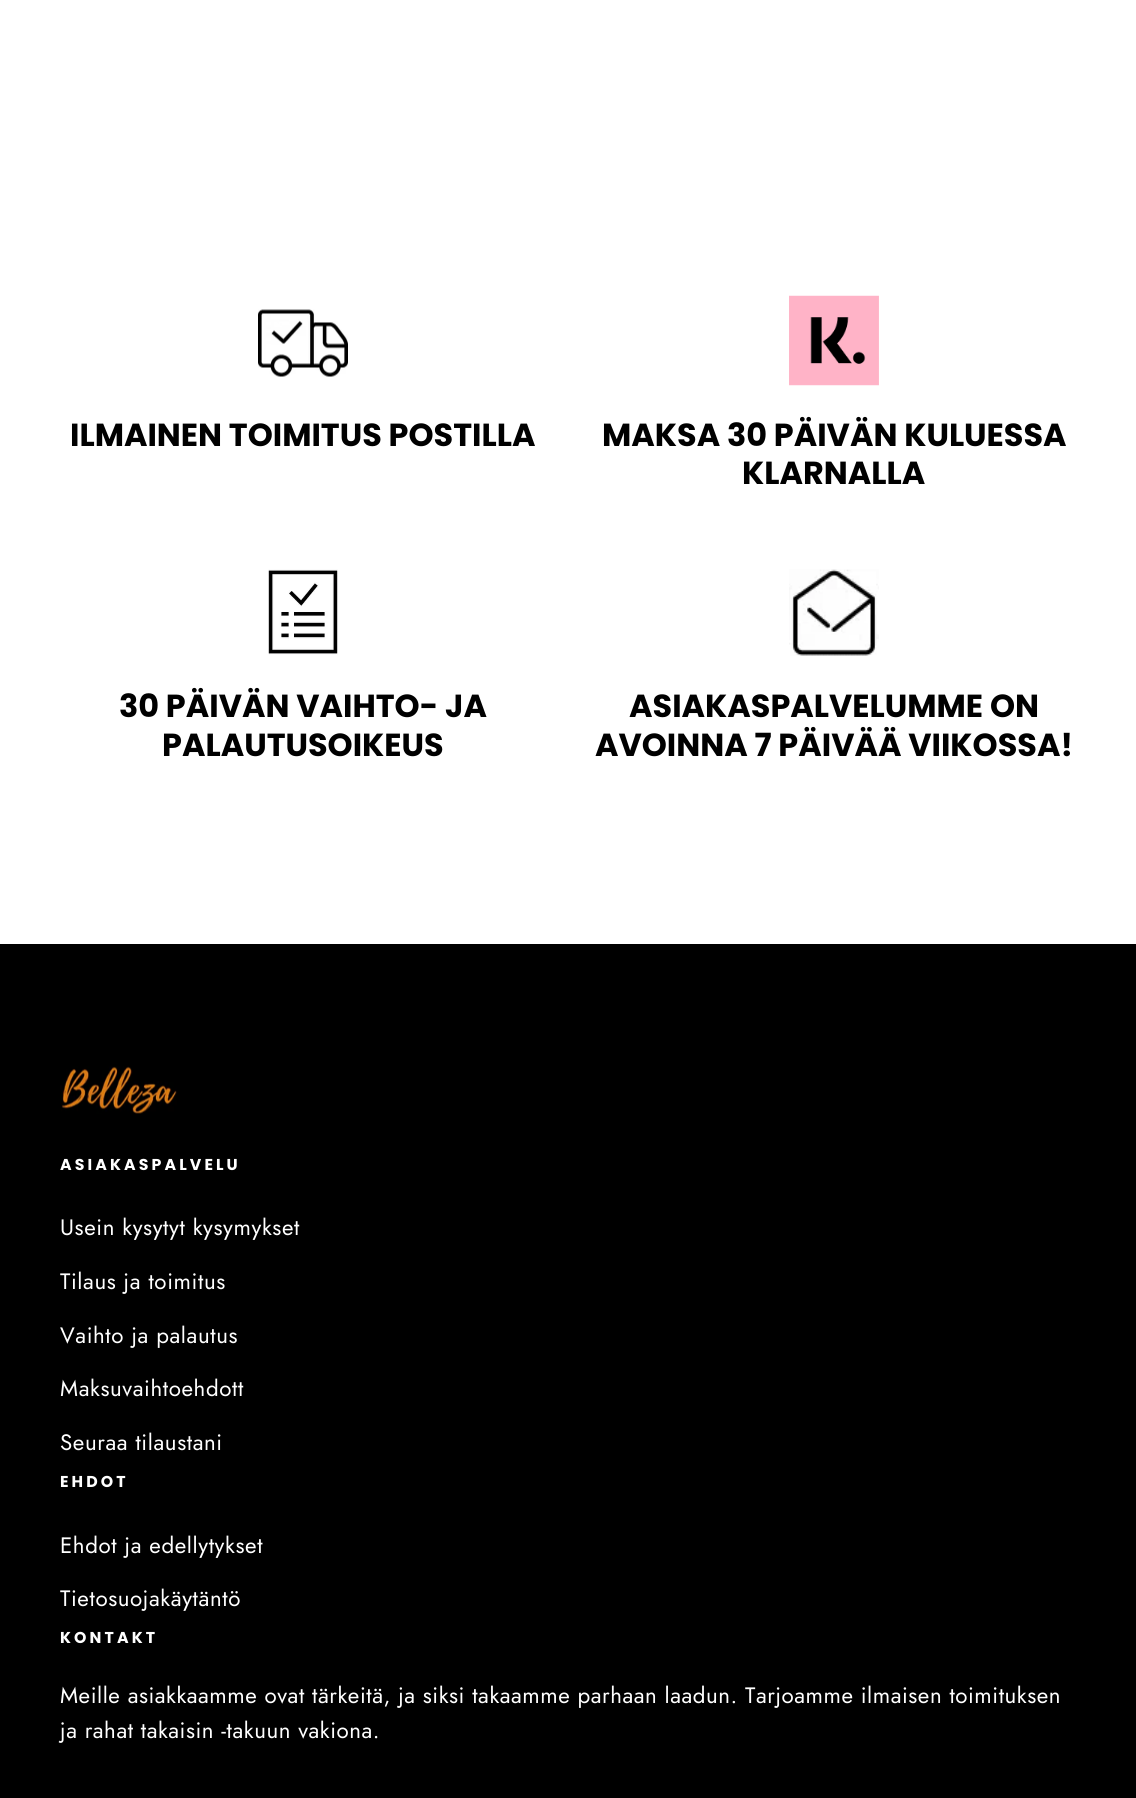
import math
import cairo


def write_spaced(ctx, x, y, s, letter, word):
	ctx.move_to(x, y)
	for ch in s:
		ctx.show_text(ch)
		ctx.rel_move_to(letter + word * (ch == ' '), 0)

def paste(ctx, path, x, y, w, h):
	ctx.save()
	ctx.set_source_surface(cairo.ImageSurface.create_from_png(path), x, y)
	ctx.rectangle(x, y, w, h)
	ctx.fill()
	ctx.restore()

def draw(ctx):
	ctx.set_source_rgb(1, 1, 1)
	ctx.paint()
	paste(ctx, 'media/1.png', 258, 309, 90, 68)
	ctx.select_font_face('Poppins', cairo.FONT_SLANT_NORMAL, cairo.FONT_WEIGHT_BOLD)
	ctx.set_font_size(31.9)
	ctx.set_source_rgb(0, 0, 0)
	ctx.move_to(70, 446)
	ctx.show_text('ILMAINEN TOIMITUS POSTILLA')
	paste(ctx, 'media/2.png', 789, 295, 90, 91)
	ctx.move_to(602, 446)
	ctx.show_text('MAKSA 30 PÄIVÄN KULUESSA')
	ctx.move_to(742, 484)
	ctx.show_text('KLARNALLA')
	paste(ctx, 'media/3.png', 268, 569, 70, 86)
	ctx.move_to(119, 717)
	ctx.show_text('30 PÄIVÄN VAIHTO- JA')
	ctx.move_to(162, 756)
	ctx.show_text('PALAUTUSOIKEUS')
	paste(ctx, 'media/4.png', 789, 569, 90, 87)
	ctx.move_to(629, 717)
	ctx.show_text('ASIAKASPALVELUMME ON')
	ctx.move_to(595, 756)
	ctx.show_text('AVOINNA 7 PÄIVÄÄ VIIKOSSA!')
	ctx.rectangle(0, 944, 1136, 854)
	ctx.fill()
	paste(ctx, 'media/5.png', 60, 1066, 117, 48)
	ctx.set_font_size(15.75)
	ctx.set_source_rgb(1, 1, 1)
	write_spaced(ctx, 60, 1170, 'ASIAKASPALVELU', 3.1, 0)
	ctx.select_font_face('Jost')
	ctx.set_font_size(22.3)
	for x, y, s in [
		(60, 1235, 'Usein kysytyt kysymykset'),
		(60, 1289, 'Tilaus ja toimitus'),
		(60, 1343, 'Vaihto ja palautus'),
		(60, 1396, 'Maksuvaihtoehdott'),
		(60, 1450, 'Seuraa tilaustani'),
	]:
		write_spaced(ctx, x, y, s, 0.6, 0)
	ctx.select_font_face('Poppins', cairo.FONT_SLANT_NORMAL, cairo.FONT_WEIGHT_BOLD)
	ctx.set_font_size(15.75)
	write_spaced(ctx, 60, 1487, 'EHDOT', 3.1, 0)
	ctx.select_font_face('Jost')
	ctx.set_font_size(22.3)
	write_spaced(ctx, 60, 1553, 'Ehdot ja edellytykset', 0.6, 0)
	write_spaced(ctx, 60, 1606, 'Tietosuojakäytäntö', 0.6, 0)
	ctx.select_font_face('Poppins', cairo.FONT_SLANT_NORMAL, cairo.FONT_WEIGHT_BOLD)
	ctx.set_font_size(15.75)
	write_spaced(ctx, 60, 1643, 'KONTAKT', 3.1, 0)
	ctx.select_font_face('Jost')
	ctx.set_font_size(22.3)
	write_spaced(ctx, 60, 1703, 'Meille asiakkaamme ovat tärkeitä, ja siksi takaamme parhaan laadun. Tarjoamme ilmaisen toimituksen', 0.55, 0)
	write_spaced(ctx, 60, 1738, 'ja rahat takaisin -takuun vakiona.', 0.55, 0)


surface = cairo.ImageSurface(cairo.FORMAT_RGB24, 1136, 1798)
ctx = cairo.Context(surface)
options = cairo.FontOptions()
options.set_hint_metrics(cairo.HINT_METRICS_OFF)
options.set_hint_style(cairo.HINT_STYLE_NONE)
ctx.set_font_options(options)
ctx.set_miter_limit(4)
draw(ctx)
surface.write_to_png('image.png')
